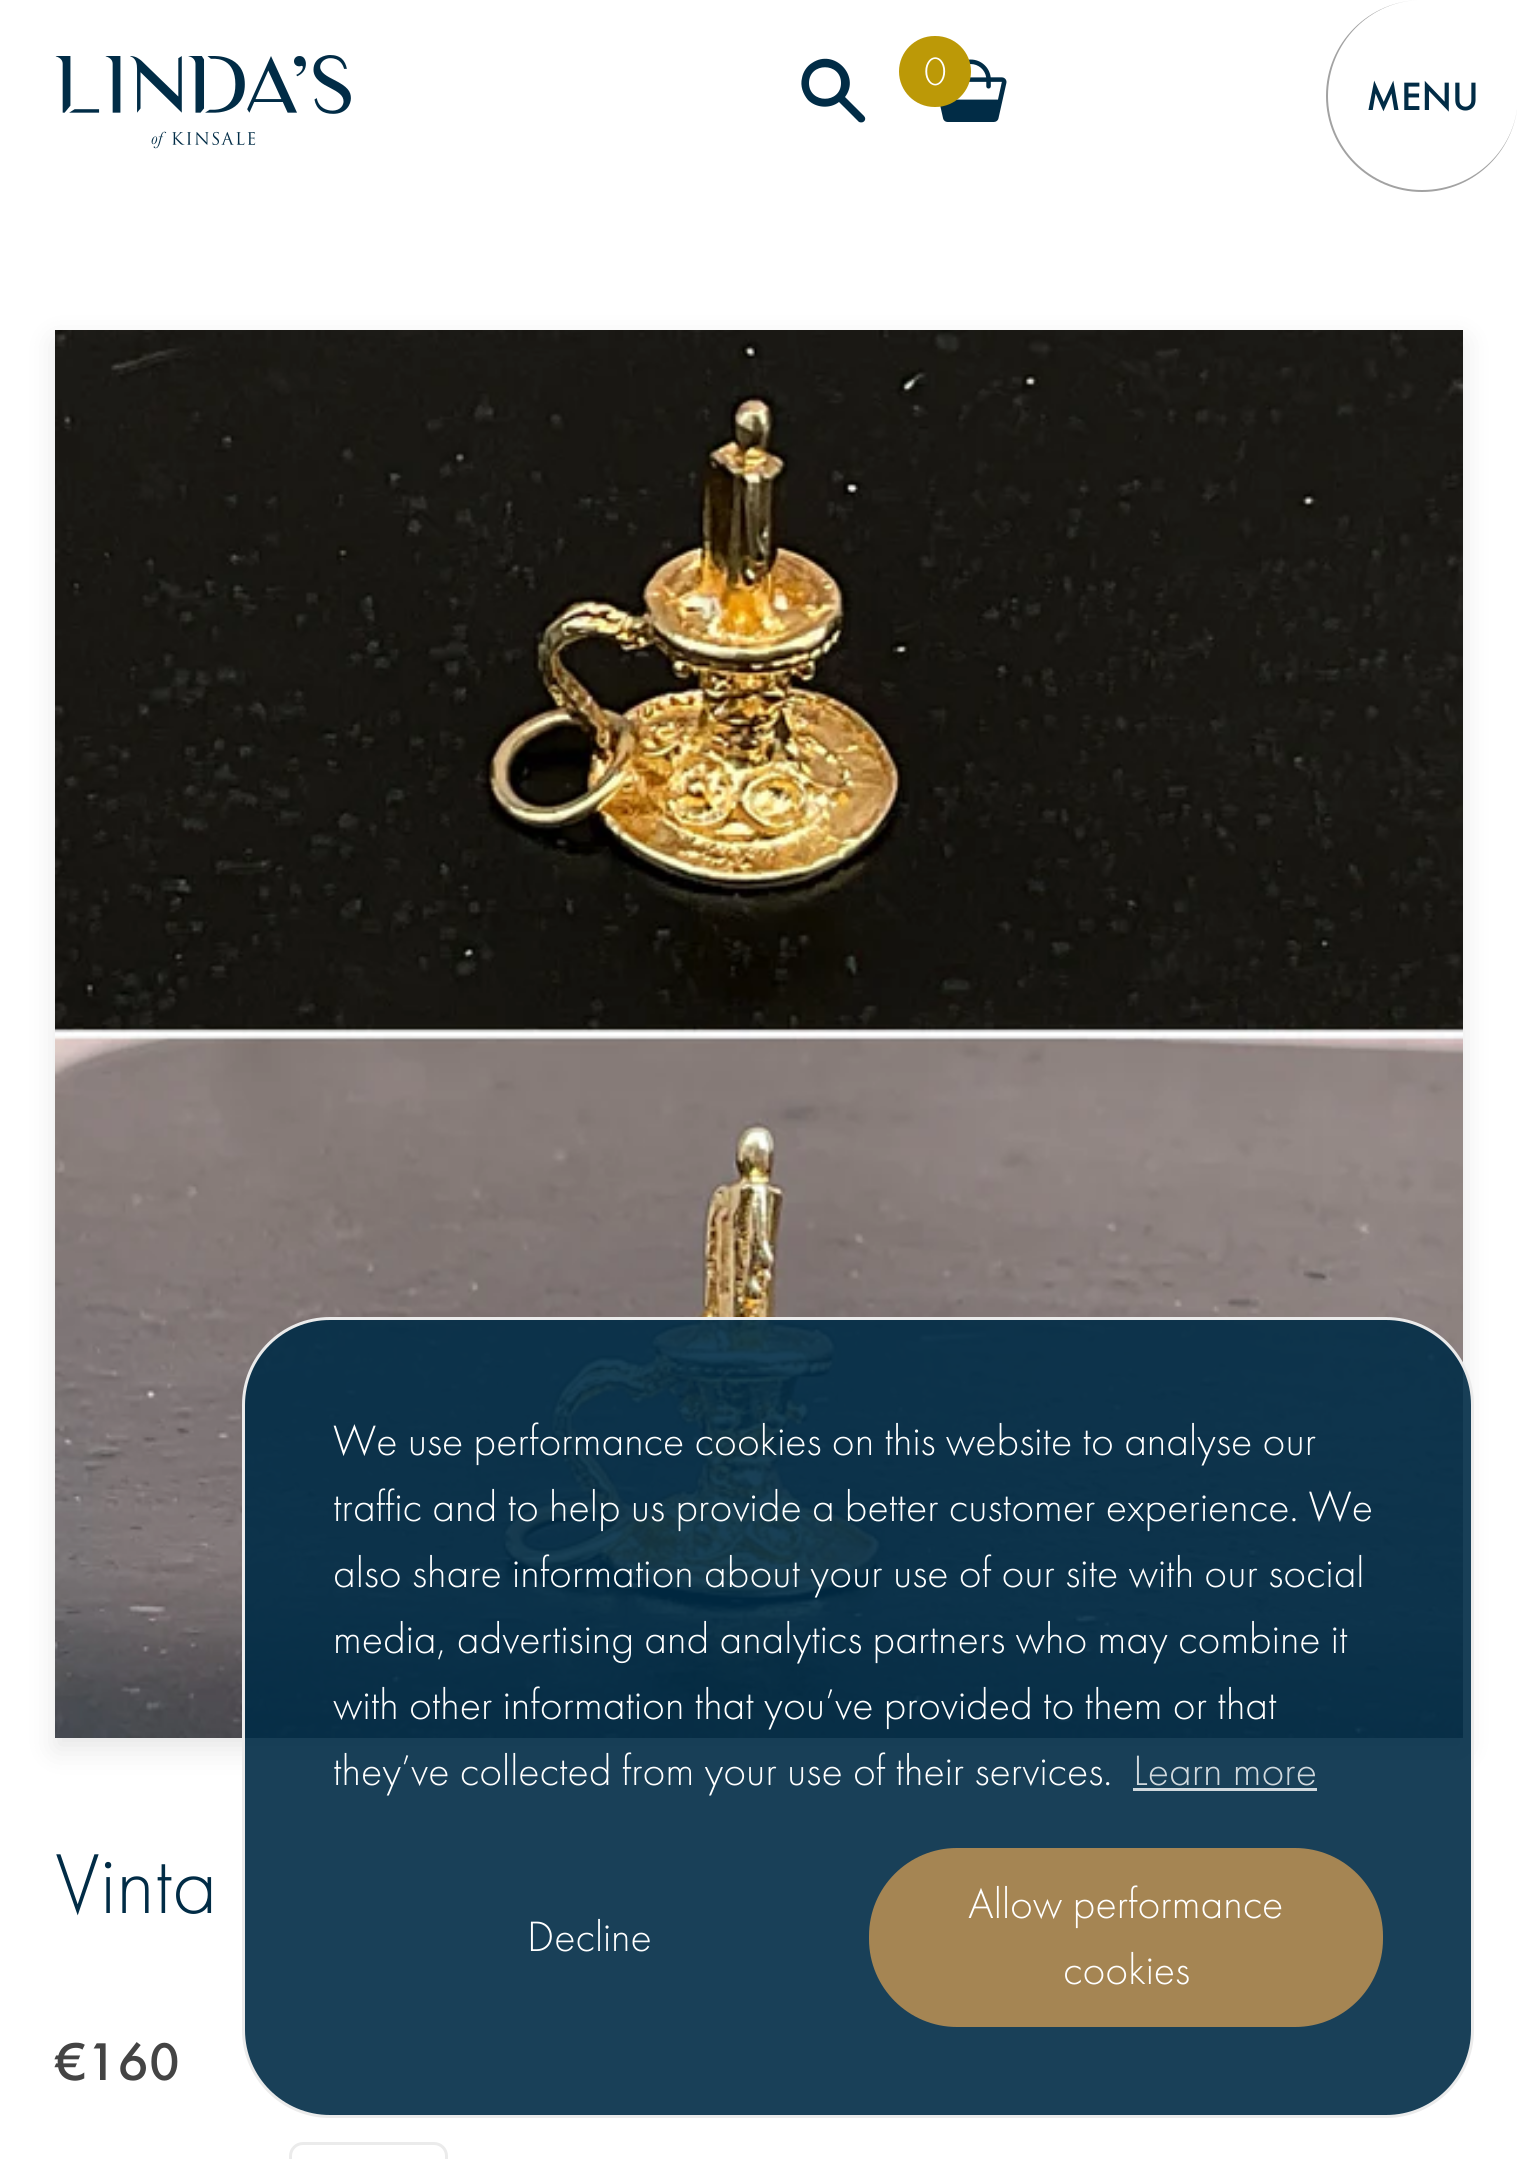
import math
import cairo


def round_path(ctx, x, y, w, h, r):
	ctx.new_sub_path()
	for i, (u, v) in enumerate([(x + w - r, y + h - r), (x + r, y + h - r), (x + r, y + r), (x + w - r, y + r)]):
		ctx.arc(u, v, r, i * math.pi / 2, (i + 1) * math.pi / 2)
	ctx.close_path()

def blur_box(ctx, x, y, w, h, r, blur, alpha):
	ctx.push_group_with_content(cairo.CONTENT_ALPHA)
	ctx.set_operator(cairo.OPERATOR_SOURCE)
	for i in range(15, -16, -2):
		e = blur * i / 6
		if min(w, h) + 2 * e > 0:
			ctx.set_source_rgba(0, 0, 0, alpha * math.erfc((i - 1) / 8.5) / 2)
			round_path(ctx, x - e, y - e, w + 2 * e, h + 2 * e, max(0, min(r + e + blur * .6, min(w, h) / 2 + e)))
			ctx.fill()
	ctx.mask(ctx.pop_group())

def paste(ctx, path, x, y, w, h):
	ctx.save()
	ctx.set_source_surface(cairo.ImageSurface.create_from_png(path), x, y)
	ctx.rectangle(x, y, w, h)
	ctx.fill()
	ctx.restore()

def draw(ctx):
	ctx.set_source_rgb(1, 1, 1)
	ctx.paint()
	paste(ctx, 'media/1.png', 55, 55, 296, 94)
	ctx.set_source_rgb(0.004, 0.173, 0.275)
	ctx.new_path()
	ctx.move_to(864, 116)
	ctx.line_to(845, 97)
	ctx.curve_to(861, 76, 834, 48, 812, 63)
	ctx.curve_to(807, 66, 803, 72, 802, 78)
	ctx.curve_to(800, 86, 803, 94, 808, 100)
	ctx.curve_to(816, 108, 830, 109, 839, 102)
	ctx.line_to(859, 122)
	ctx.curve_to(864, 124, 867, 119, 864, 116)
	ctx.close_path()
	ctx.move_to(809, 83)
	ctx.curve_to(809, 62, 841, 62, 841, 83)
	ctx.curve_to(841, 104, 809, 104, 809, 83)
	ctx.close_path()
	ctx.fill()
	paste(ctx, 'media/2.png', 940, 59, 67, 63)
	ctx.set_source_rgb(0.737, 0.6, 0.031)
	round_path(ctx, 899, 36, 72, 71, 35.5)
	ctx.fill()
	ctx.select_font_face('Futura PT Light')
	ctx.set_font_size(41)
	ctx.set_source_rgb(1, 1, 1)
	ctx.move_to(924, 85)
	ctx.show_text('0')
	ctx.set_source_rgb(0.635, 0.635, 0.635)
	ctx.set_fill_rule(cairo.FILL_RULE_EVEN_ODD)
	ctx.new_path()
	ctx.move_to(1422, 0)
	ctx.line_to(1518, 0)
	ctx.line_to(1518, 96)
	ctx.curve_to(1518, 149, 1475, 192, 1422, 192)
	ctx.curve_to(1369, 192, 1326, 149, 1326, 96)
	ctx.curve_to(1326, 43, 1369, 0, 1422, 0)
	ctx.close_path()
	ctx.move_to(1422, 0)
	ctx.line_to(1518, 0)
	ctx.line_to(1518, 96)
	ctx.curve_to(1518, 148, 1475, 190, 1422, 190)
	ctx.curve_to(1370, 190, 1328, 148, 1328, 96)
	ctx.curve_to(1328, 43, 1370, 0, 1422, 0)
	ctx.close_path()
	ctx.fill()
	ctx.select_font_face('Futura PT Medium')
	ctx.set_source_rgb(0.004, 0.173, 0.275)
	ctx.move_to(1366, 110)
	ctx.show_text('MENU')
	ctx.set_source_rgb(0, 0, 0)
	blur_box(ctx, 55, 341, 1408, 1408, 0, 14, 0.1)
	paste(ctx, 'media/3.png', 55, 330, 1408, 1408)
	ctx.select_font_face('Futura PT Light')
	ctx.set_font_size(88)
	ctx.set_source_rgb(0.004, 0.173, 0.275)
	ctx.move_to(55, 1913)
	ctx.show_text('Vinta')
	ctx.select_font_face('Futura PT Medium')
	ctx.set_font_size(55)
	ctx.set_source_rgb(0.267, 0.267, 0.267)
	ctx.move_to(55, 2080)
	ctx.show_text('€160')
	round_path(ctx, 290.5, 2143.5, 156, 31, 12.5)
	ctx.set_source_rgb(0.918, 0.918, 0.918)
	ctx.set_line_width(3)
	ctx.stroke()
	ctx.set_source_rgba(0.004, 0.173, 0.275, 0.9)
	round_path(ctx, 243.5, 1318.5, 1229, 798, 86.5)
	ctx.fill_preserve()
	ctx.set_source_rgb(0.918, 0.918, 0.918)
	ctx.stroke()
	ctx.select_font_face('Futura PT Light')
	ctx.set_font_size(44)
	ctx.set_source_rgb(1, 1, 1)
	for x, y, s in [
		(333, 1455, 'We use performance cookies on this website to analyse our'),
		(333, 1521, 'traffic and to help us provide a better customer experience. We'),
		(333, 1587, 'also share information about your use of our site with our social'),
		(333, 1653, 'media, advertising and analytics partners who may combine it'),
		(333, 1719, 'with other information that you’ve provided to them or that'),
		(333, 1785, 'they’ve collected from your use of their services.'),
	]:
		ctx.move_to(x, y)
		ctx.show_text(s)
	ctx.set_source_rgb(0.82, 0.851, 0.871)
	ctx.move_to(1133, 1785)
	ctx.show_text('Learn more')
	ctx.rectangle(1133, 1788, 184, 3)
	ctx.fill()
	ctx.set_source_rgb(1, 1, 1)
	ctx.move_to(527, 1951)
	ctx.show_text('Decline')
	ctx.set_source_rgb(0.647, 0.522, 0.325)
	round_path(ctx, 869, 1848, 514, 179, 88)
	ctx.fill()
	ctx.set_source_rgb(1, 1, 1)
	ctx.move_to(968, 1918)
	ctx.show_text('Allow performance')
	ctx.move_to(1063, 1984)
	ctx.show_text('cookies')


surface = cairo.ImageSurface(cairo.FORMAT_RGB24, 1517, 2159)
ctx = cairo.Context(surface)
options = cairo.FontOptions()
options.set_hint_metrics(cairo.HINT_METRICS_OFF)
options.set_hint_style(cairo.HINT_STYLE_NONE)
ctx.set_font_options(options)
ctx.set_miter_limit(4)
draw(ctx)
surface.write_to_png('image.png')
